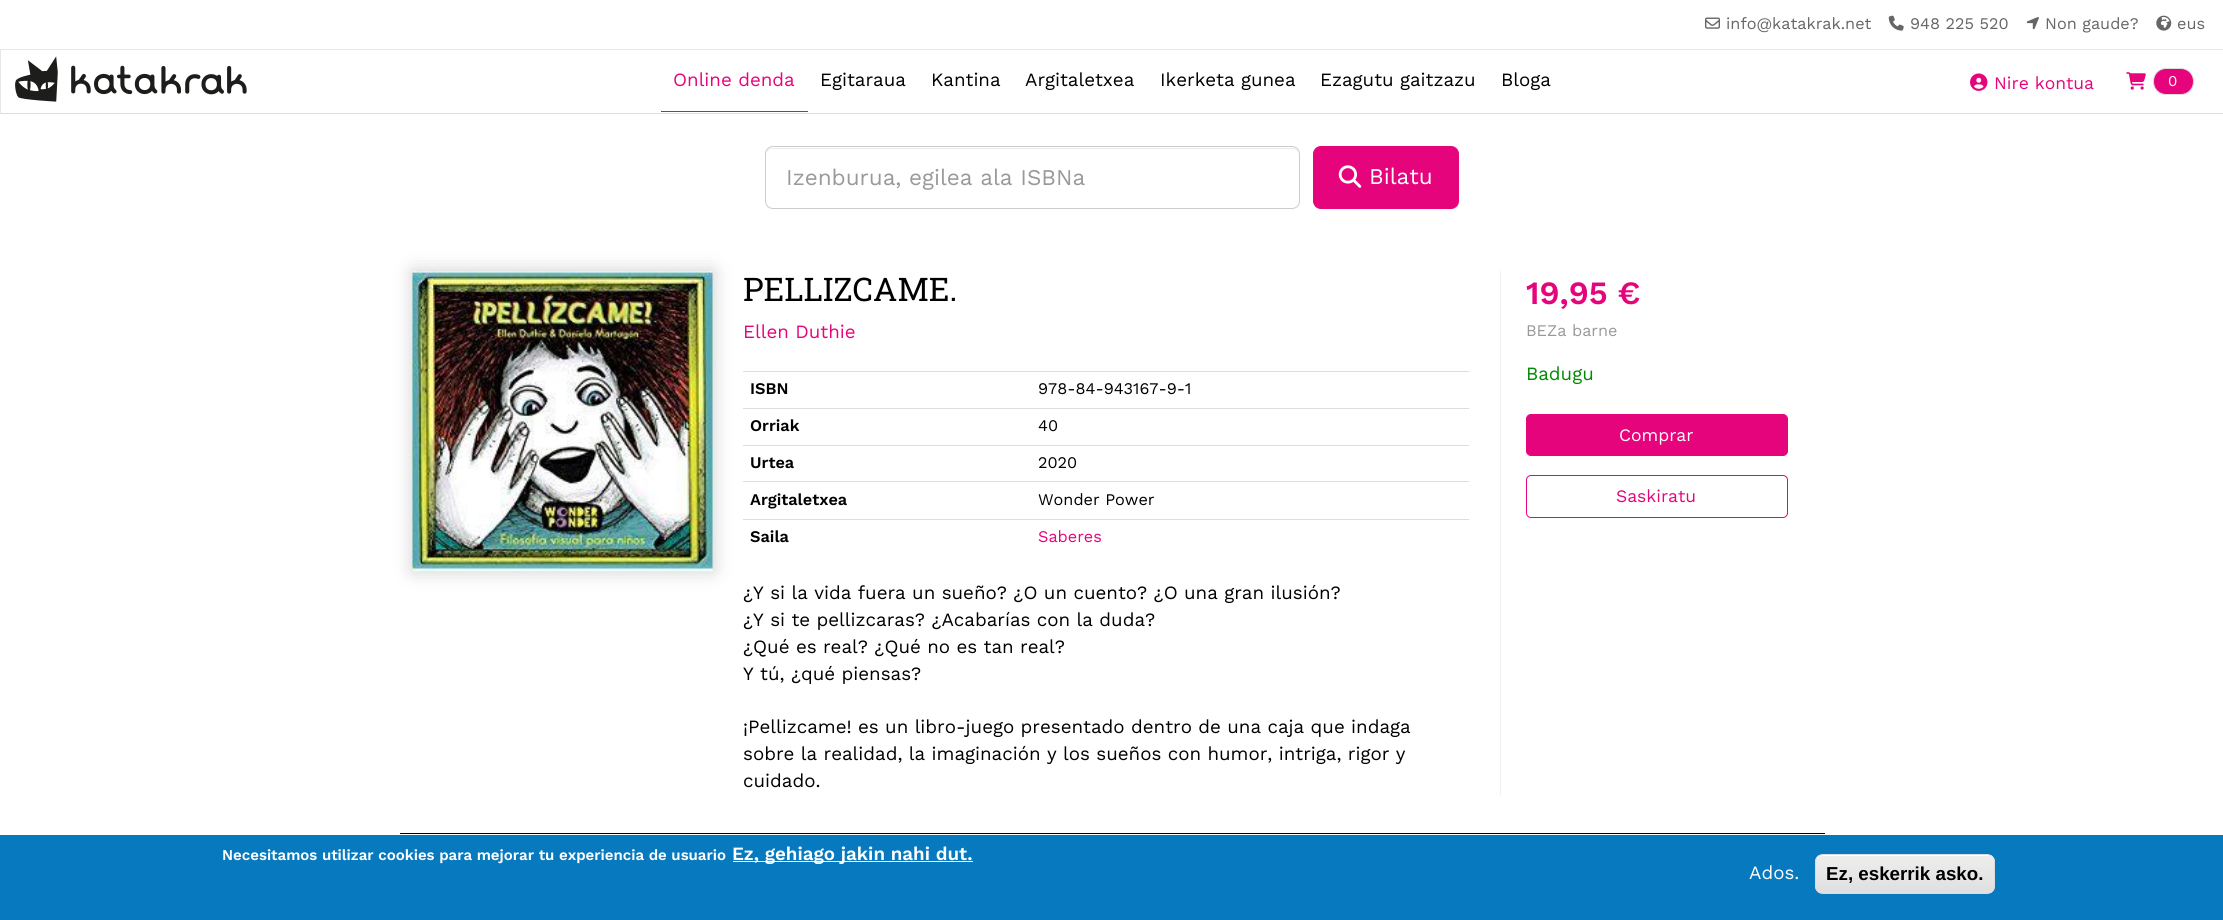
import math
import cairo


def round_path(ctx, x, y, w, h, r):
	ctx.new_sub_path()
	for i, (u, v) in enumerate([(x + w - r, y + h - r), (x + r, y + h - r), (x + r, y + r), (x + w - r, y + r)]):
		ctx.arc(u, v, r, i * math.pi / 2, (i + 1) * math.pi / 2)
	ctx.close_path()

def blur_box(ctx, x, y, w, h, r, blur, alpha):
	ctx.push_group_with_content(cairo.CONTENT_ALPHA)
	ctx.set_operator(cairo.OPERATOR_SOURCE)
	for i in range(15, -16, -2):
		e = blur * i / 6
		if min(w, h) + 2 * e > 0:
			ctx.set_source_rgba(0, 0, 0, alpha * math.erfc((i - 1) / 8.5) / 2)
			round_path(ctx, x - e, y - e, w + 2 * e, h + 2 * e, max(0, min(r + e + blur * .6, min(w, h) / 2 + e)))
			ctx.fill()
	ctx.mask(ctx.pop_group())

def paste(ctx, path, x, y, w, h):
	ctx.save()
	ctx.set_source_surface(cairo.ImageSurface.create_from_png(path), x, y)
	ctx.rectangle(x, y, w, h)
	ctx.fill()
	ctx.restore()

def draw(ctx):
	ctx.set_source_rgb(1, 1, 1)
	ctx.paint()
	paste(ctx, 'media/1.png', 1705, 17, 15, 12)
	ctx.select_font_face('Work Sans')
	ctx.set_font_size(16.25)
	ctx.set_source_rgb(0.4, 0.4, 0.4)
	ctx.move_to(1726, 29)
	ctx.show_text('info@katakrak.net')
	paste(ctx, 'media/2.png', 1888, 15, 16, 16)
	ctx.move_to(1910, 29)
	ctx.show_text('948 225 520')
	paste(ctx, 'media/3.png', 2026, 17, 13, 13)
	ctx.move_to(2045, 29)
	ctx.show_text('Non gaude?')
	paste(ctx, 'media/4.png', 2156, 15, 16, 16)
	ctx.move_to(2177, 29)
	ctx.show_text('eus')
	ctx.set_source_rgb(0.906, 0.906, 0.906)
	ctx.rectangle(0, 49, 2223, 1)
	ctx.fill()
	ctx.set_source_rgb(0.867, 0.867, 0.867)
	ctx.rectangle(0, 113, 2223, 1)
	ctx.fill()
	ctx.set_source_rgb(0.906, 0.906, 0.906)
	ctx.rectangle(0, 49, 1, 65)
	ctx.fill()
	paste(ctx, 'media/5.png', 15, 56, 232, 46)
	ctx.set_font_size(18.75)
	ctx.set_source_rgb(0.902, 0.016, 0.486)
	ctx.move_to(673, 86)
	ctx.show_text('Online denda')
	ctx.rectangle(661, 111, 147, 1)
	ctx.fill()
	ctx.set_source_rgb(0, 0, 0)
	for x, y, s in [
		(820, 86, 'Egitaraua'),
		(931, 86, 'Kantina'),
		(1025, 86, 'Argitaletxea'),
		(1160, 86, 'Ikerketa gunea'),
		(1320, 86, 'Ezagutu gaitzazu'),
		(1501, 86, 'Bloga'),
	]:
		ctx.move_to(x, y)
		ctx.show_text(s)
	paste(ctx, 'media/6.png', 1970, 73, 18, 18)
	ctx.set_font_size(17.5)
	ctx.set_source_rgb(0.902, 0.016, 0.486)
	ctx.move_to(1994, 89)
	ctx.show_text('Nire kontua')
	paste(ctx, 'media/7.png', 2126, 72, 20, 18)
	round_path(ctx, 2153.5, 68.5, 40, 26, 12.5)
	ctx.fill_preserve()
	ctx.set_source_rgb(0.867, 0.867, 0.867)
	ctx.set_line_width(1)
	ctx.stroke()
	ctx.set_font_size(15)
	ctx.set_source_rgb(1, 1, 1)
	ctx.move_to(2168, 86)
	ctx.show_text('0')
	ctx.set_source_rgb(0.925, 0.925, 0.925)
	ctx.new_path()
	ctx.move_to(772, 149)
	ctx.line_to(1292, 149)
	ctx.curve_to(1296, 149, 1299, 152, 1299, 155)
	ctx.line_to(1299, 154)
	ctx.curve_to(1299, 151, 1296, 148, 1293, 148)
	ctx.line_to(772, 148)
	ctx.curve_to(769, 148, 766, 151, 766, 154)
	ctx.line_to(766, 155)
	ctx.curve_to(766, 152, 769, 149, 772, 149)
	ctx.close_path()
	ctx.fill()
	round_path(ctx, 765.5, 146.5, 534, 62, 7.5)
	ctx.set_source_rgb(0.8, 0.8, 0.8)
	ctx.stroke()
	ctx.set_font_size(22.5)
	ctx.set_source_rgb(0.6, 0.6, 0.6)
	ctx.move_to(786, 185)
	ctx.show_text('Izenburua, egilea ala ISBNa')
	ctx.set_source_rgb(0.902, 0.016, 0.486)
	round_path(ctx, 1313.5, 146.5, 145, 62, 7.5)
	ctx.fill_preserve()
	ctx.stroke()
	paste(ctx, 'media/8.png', 1338, 165, 24, 23)
	ctx.set_source_rgb(1, 1, 1)
	ctx.move_to(1369, 184)
	ctx.show_text('Bilatu')
	ctx.set_source_rgb(0, 0, 0)
	blur_box(ctx, 413, 271, 300, 300, 0, 9.5, 0.2)
	paste(ctx, 'media/9.png', 412, 271, 301, 301)
	ctx.select_font_face('Roboto Slab')
	ctx.set_font_size(32.5)
	ctx.set_source_rgb(0, 0, 0)
	ctx.move_to(743, 301)
	ctx.show_text('PELLIZCAME.')
	ctx.select_font_face('Work Sans')
	ctx.set_font_size(18.75)
	ctx.set_source_rgb(0.902, 0.016, 0.486)
	ctx.move_to(743, 338)
	ctx.show_text('Ellen Duthie')
	ctx.select_font_face('Work Sans SemiBold')
	ctx.set_font_size(16.25)
	ctx.set_source_rgb(0, 0, 0)
	ctx.move_to(750, 394)
	ctx.show_text('ISBN')
	ctx.set_source_rgb(0.867, 0.867, 0.867)
	ctx.rectangle(743, 371, 726, 1)
	ctx.fill()
	ctx.select_font_face('Work Sans')
	ctx.set_source_rgb(0, 0, 0)
	ctx.move_to(1038, 394)
	ctx.show_text('978-84-943167-9-1')
	ctx.select_font_face('Work Sans SemiBold')
	ctx.move_to(750, 431)
	ctx.show_text('Orriak')
	ctx.set_source_rgb(0.867, 0.867, 0.867)
	ctx.rectangle(743, 408, 726, 1)
	ctx.fill()
	ctx.select_font_face('Work Sans')
	ctx.set_source_rgb(0, 0, 0)
	ctx.move_to(1038, 431)
	ctx.show_text('40')
	ctx.select_font_face('Work Sans SemiBold')
	ctx.move_to(750, 468)
	ctx.show_text('Urtea')
	ctx.set_source_rgb(0.867, 0.867, 0.867)
	ctx.rectangle(743, 445, 726, 1)
	ctx.fill()
	ctx.select_font_face('Work Sans')
	ctx.set_source_rgb(0, 0, 0)
	ctx.move_to(1038, 468)
	ctx.show_text('2020')
	ctx.select_font_face('Work Sans SemiBold')
	ctx.move_to(750, 505)
	ctx.show_text('Argitaletxea')
	ctx.set_source_rgb(0.867, 0.867, 0.867)
	ctx.rectangle(743, 481, 726, 1)
	ctx.fill()
	ctx.select_font_face('Work Sans')
	ctx.set_source_rgb(0, 0, 0)
	ctx.move_to(1038, 505)
	ctx.show_text('Wonder Power')
	ctx.select_font_face('Work Sans SemiBold')
	ctx.move_to(750, 542)
	ctx.show_text('Saila')
	ctx.set_source_rgb(0.867, 0.867, 0.867)
	ctx.rectangle(743, 519, 726, 1)
	ctx.fill()
	ctx.select_font_face('Work Sans')
	ctx.set_source_rgb(0.902, 0.016, 0.486)
	ctx.move_to(1038, 542)
	ctx.show_text('Saberes')
	ctx.set_font_size(18.75)
	ctx.set_source_rgb(0, 0, 0)
	for x, y, s in [
		(743, 599, '¿Y si la vida fuera un sueño? ¿O un cuento? ¿O una gran ilusión?'),
		(743, 626, '¿Y si te pellizcaras? ¿Acabarías con la duda?'),
		(743, 653, '¿Qué es real? ¿Qué no es tan real?'),
		(743, 680, 'Y tú, ¿qué piensas?'),
		(743, 733, '¡Pellizcame! es un libro-juego presentado dentro de una caja que indaga'),
		(743, 760, 'sobre la realidad, la imaginación y los sueños con humor, intriga, rigor y'),
		(743, 787, 'cuidado.'),
	]:
		ctx.move_to(x, y)
		ctx.show_text(s)
	ctx.set_source_rgb(0.941, 0.941, 0.941)
	ctx.rectangle(1500, 271, 1, 524)
	ctx.fill()
	ctx.select_font_face('Work Sans SemiBold')
	ctx.set_font_size(32.5)
	ctx.set_source_rgb(0.902, 0.016, 0.486)
	ctx.move_to(1526, 304)
	ctx.show_text('19,95 €')
	ctx.select_font_face('Work Sans')
	ctx.set_font_size(16.25)
	ctx.set_source_rgb(0.6, 0.6, 0.6)
	ctx.move_to(1526, 336)
	ctx.show_text('BEZa barne')
	ctx.set_font_size(18.75)
	ctx.set_source_rgb(0, 0.541, 0)
	ctx.move_to(1526, 380)
	ctx.show_text('Badugu')
	ctx.set_source_rgb(0.902, 0.016, 0.486)
	round_path(ctx, 1526.5, 414.5, 261, 41, 4.5)
	ctx.fill_preserve()
	ctx.stroke()
	ctx.set_font_size(17.5)
	ctx.set_source_rgb(1, 1, 1)
	ctx.move_to(1619, 441)
	ctx.show_text('Comprar')
	round_path(ctx, 1526.5, 475.5, 261, 42, 4.5)
	ctx.set_source_rgb(0.902, 0.016, 0.486)
	ctx.stroke()
	ctx.move_to(1616, 502)
	ctx.show_text('Saskiratu')
	ctx.set_source_rgb(0, 0, 0)
	ctx.rectangle(400, 833, 1425, 1)
	ctx.fill()
	ctx.set_source_rgb(0.027, 0.475, 0.749)
	ctx.rectangle(0, 835, 2223, 85)
	ctx.fill()
	ctx.select_font_face('Work Sans SemiBold')
	ctx.set_font_size(15)
	ctx.set_source_rgb(1, 1, 1)
	ctx.move_to(222, 860)
	ctx.show_text('Necesitamos utilizar cookies para mejorar tu experiencia de usuario')
	ctx.rectangle(733, 861, 240, 1)
	ctx.fill()
	ctx.set_font_size(18.75)
	ctx.move_to(732, 860)
	ctx.show_text('Ez, gehiago jakin nahi dut.')
	ctx.select_font_face('Work Sans')
	ctx.move_to(1749, 879)
	ctx.show_text('Ados.')
	ctx.save()
	round_path(ctx, 1815, 854, 180, 40, 8)
	ctx.clip()
	gradient = cairo.LinearGradient(1905, 855, 1905, 893)
	gradient.add_color_stop_rgba(0.05, 0.929, 0.929, 0.929, 1)
	gradient.add_color_stop_rgba(1, 0.875, 0.875, 0.875, 1)
	ctx.set_source(gradient)
	ctx.rectangle(1815, 855, 180, 38)
	ctx.fill()
	ctx.restore()
	ctx.new_path()
	ctx.move_to(1822, 856)
	ctx.line_to(1988, 856)
	ctx.curve_to(1991, 856, 1994, 859, 1994, 862)
	ctx.line_to(1994, 861)
	ctx.curve_to(1994, 858, 1991, 855, 1988, 855)
	ctx.line_to(1822, 855)
	ctx.curve_to(1819, 855, 1816, 858, 1816, 861)
	ctx.line_to(1816, 862)
	ctx.curve_to(1816, 859, 1819, 856, 1822, 856)
	ctx.close_path()
	ctx.fill()
	round_path(ctx, 1815.5, 854.5, 179, 39, 7.5)
	ctx.set_source_rgb(0.863, 0.863, 0.863)
	ctx.stroke()
	ctx.select_font_face('Liberation Sans', cairo.FONT_SLANT_NORMAL, cairo.FONT_WEIGHT_BOLD)
	ctx.set_source_rgb(0, 0, 0)
	ctx.move_to(1826, 880)
	ctx.show_text('Ez, eskerrik asko.')


surface = cairo.ImageSurface(cairo.FORMAT_RGB24, 2223, 920)
ctx = cairo.Context(surface)
options = cairo.FontOptions()
options.set_hint_metrics(cairo.HINT_METRICS_OFF)
options.set_hint_style(cairo.HINT_STYLE_NONE)
ctx.set_font_options(options)
ctx.set_miter_limit(4)
draw(ctx)
surface.write_to_png('image.png')
